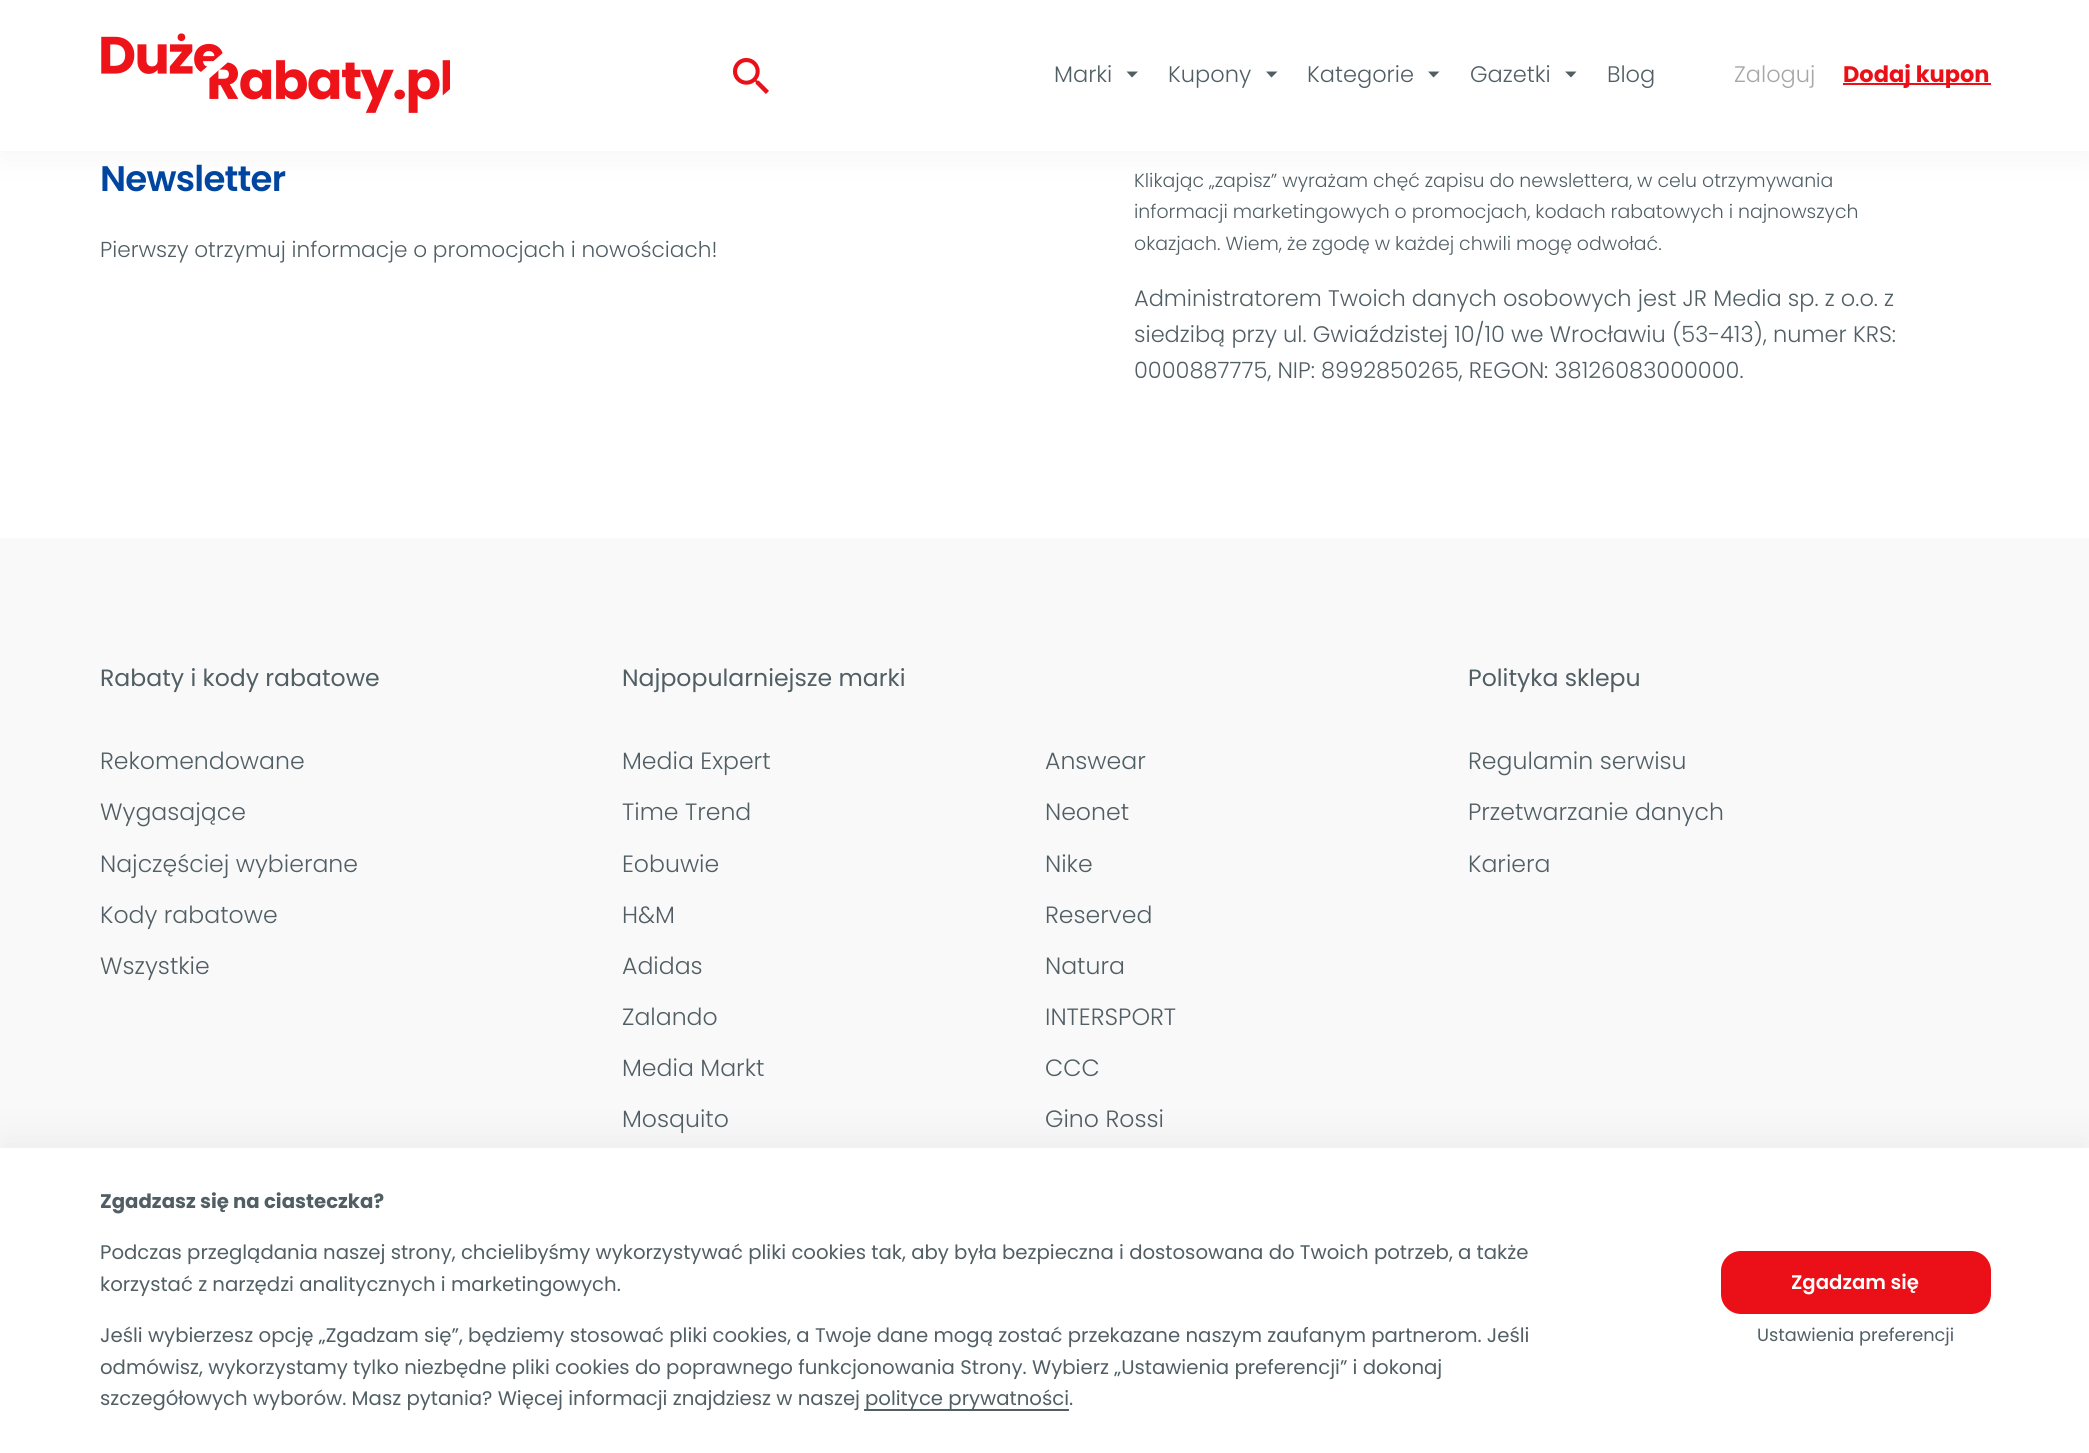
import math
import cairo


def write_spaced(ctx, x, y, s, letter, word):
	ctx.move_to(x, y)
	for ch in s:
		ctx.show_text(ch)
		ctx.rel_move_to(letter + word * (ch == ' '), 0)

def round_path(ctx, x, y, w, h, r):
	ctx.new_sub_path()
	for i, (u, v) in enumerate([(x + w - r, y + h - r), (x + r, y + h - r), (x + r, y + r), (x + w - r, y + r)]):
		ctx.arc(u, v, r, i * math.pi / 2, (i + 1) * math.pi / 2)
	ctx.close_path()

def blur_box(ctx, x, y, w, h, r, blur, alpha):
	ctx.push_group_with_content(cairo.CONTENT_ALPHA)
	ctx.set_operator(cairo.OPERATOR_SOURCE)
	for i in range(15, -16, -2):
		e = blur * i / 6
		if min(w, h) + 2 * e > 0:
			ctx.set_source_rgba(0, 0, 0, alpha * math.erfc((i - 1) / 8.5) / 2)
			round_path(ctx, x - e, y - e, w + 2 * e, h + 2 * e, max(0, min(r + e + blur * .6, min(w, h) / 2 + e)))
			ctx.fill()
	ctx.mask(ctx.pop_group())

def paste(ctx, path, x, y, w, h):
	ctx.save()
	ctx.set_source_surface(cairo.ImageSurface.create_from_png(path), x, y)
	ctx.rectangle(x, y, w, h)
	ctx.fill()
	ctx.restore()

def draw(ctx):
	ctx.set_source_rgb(0.973, 0.973, 0.973)
	ctx.paint()
	ctx.set_source_rgb(1, 1, 1)
	ctx.rectangle(0, 151, 2089, 387)
	ctx.fill()
	ctx.set_source_rgb(0, 0, 0)
	blur_box(ctx, 0, 0, 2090, 151, 0, 19.5, 0.05)
	ctx.set_source_rgb(1, 1, 1)
	ctx.rectangle(0, 0, 2089, 151)
	ctx.fill()
	paste(ctx, 'media/1.png', 101, 33, 349, 80)
	paste(ctx, 'media/2.png', 732, 57, 37, 37)
	ctx.select_font_face('Poppins Light')
	ctx.set_font_size(22.5)
	ctx.set_source_rgb(0.318, 0.373, 0.396)
	ctx.move_to(1054, 82)
	ctx.show_text('Marki')
	ctx.new_path()
	ctx.move_to(1126.5, 71.5)
	ctx.line_to(1132, 77.5)
	ctx.line_to(1138, 71.5)
	ctx.close_path()
	ctx.fill()
	ctx.move_to(1168, 82)
	ctx.show_text('Kupony')
	ctx.new_path()
	ctx.move_to(1266, 71.5)
	ctx.line_to(1271.5, 77.5)
	ctx.line_to(1277.5, 71.5)
	ctx.close_path()
	ctx.fill()
	ctx.move_to(1307, 82)
	ctx.show_text('Kategorie')
	ctx.new_path()
	ctx.move_to(1428, 71.5)
	ctx.line_to(1433.5, 77.5)
	ctx.line_to(1439.5, 71.5)
	ctx.close_path()
	ctx.fill()
	ctx.move_to(1470, 82)
	ctx.show_text('Gazetki')
	ctx.new_path()
	ctx.move_to(1565, 71.5)
	ctx.line_to(1571, 77.5)
	ctx.line_to(1576.5, 71.5)
	ctx.close_path()
	ctx.fill()
	ctx.move_to(1607, 82)
	ctx.show_text('Blog')
	ctx.set_source_rgb(0.655, 0.655, 0.655)
	ctx.move_to(1734, 82)
	ctx.show_text('Zaloguj')
	ctx.set_source_rgb(0.918, 0.063, 0.09)
	ctx.rectangle(1843, 83, 148, 2)
	ctx.fill()
	ctx.select_font_face('Poppins', cairo.FONT_SLANT_NORMAL, cairo.FONT_WEIGHT_BOLD)
	ctx.move_to(1843, 82)
	ctx.show_text('Dodaj kupon')
	ctx.select_font_face('Poppins SemiBold')
	ctx.set_font_size(35.5)
	ctx.set_source_rgb(0, 0.275, 0.627)
	write_spaced(ctx, 100, 191, 'Newsletter', -0.75, 0)
	ctx.select_font_face('Poppins Light')
	ctx.set_font_size(21.65)
	ctx.set_source_rgb(0.318, 0.373, 0.396)
	write_spaced(ctx, 100, 257, 'Pierwszy otrzymuj informacje o promocjach i nowościach!', 0, -0.25)
	ctx.set_font_size(18.9)
	for x, y, s in [
		(1134, 187, 'Klikając „zapisz” wyrażam chęć zapisu do newslettera, w celu otrzymywania'),
		(1134, 218, 'informacji marketingowych o promocjach, kodach rabatowych i najnowszych'),
		(1134, 250, 'okazjach. Wiem, że zgodę w każdej chwili mogę odwołać.'),
	]:
		write_spaced(ctx, x, y, s, 0, -0.25)
	ctx.set_font_size(22.5)
	for x, y, s in [
		(1134, 306, 'Administratorem Twoich danych osobowych jest JR Media sp. z o.o. z'),
		(1134, 342, 'siedzibą przy ul. Gwiaździstej 10/10 we Wrocławiu (53-413), numer KRS:'),
		(1134, 378, '0000887775, NIP: 8992850265, REGON: 38126083000000.'),
	]:
		ctx.move_to(x, y)
		ctx.show_text(s)
	ctx.select_font_face('Poppins')
	ctx.set_font_size(23.6)
	ctx.move_to(100, 686)
	ctx.show_text('Rabaty i kody rabatowe')
	ctx.select_font_face('Poppins Light')
	for x, y, s in [
		(100, 769, 'Rekomendowane'),
		(100, 820, 'Wygasające'),
		(100, 872, 'Najczęściej wybierane'),
		(100, 923, 'Kody rabatowe'),
		(100, 974, 'Wszystkie'),
	]:
		ctx.move_to(x, y)
		ctx.show_text(s)
	ctx.select_font_face('Poppins')
	ctx.move_to(622, 686)
	ctx.show_text('Najpopularniejsze marki')
	ctx.select_font_face('Poppins Light')
	for x, y, s in [
		(622, 769, 'Media Expert'),
		(1045, 769, 'Answear'),
		(622, 820, 'Time Trend'),
		(1045, 820, 'Neonet'),
		(622, 872, 'Eobuwie'),
		(1045, 872, 'Nike'),
		(622, 923, 'H&M'),
		(1045, 923, 'Reserved'),
		(622, 974, 'Adidas'),
		(1045, 974, 'Natura'),
		(622, 1025, 'Zalando'),
		(1045, 1025, 'INTERSPORT'),
		(622, 1076, 'Media Markt'),
		(1045, 1076, 'CCC'),
		(622, 1127, 'Mosquito'),
		(1045, 1127, 'Gino Rossi'),
	]:
		ctx.move_to(x, y)
		ctx.show_text(s)
	ctx.select_font_face('Poppins')
	ctx.move_to(1468, 686)
	ctx.show_text('Polityka sklepu')
	ctx.select_font_face('Poppins Light')
	for x, y, s in [
		(1468, 769, 'Regulamin serwisu'),
		(1468, 820, 'Przetwarzanie danych'),
		(1468, 872, 'Kariera'),
	]:
		ctx.move_to(x, y)
		ctx.show_text(s)
	ctx.set_source_rgb(0, 0, 0)
	blur_box(ctx, 0, 1139, 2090, 306, 0, 19.5, 0.05)
	ctx.set_source_rgb(1, 1, 1)
	ctx.rectangle(0, 1148, 2089, 305)
	ctx.fill()
	ctx.select_font_face('Poppins', cairo.FONT_SLANT_NORMAL, cairo.FONT_WEIGHT_BOLD)
	ctx.set_font_size(19.7)
	ctx.set_source_rgb(0.318, 0.373, 0.396)
	ctx.move_to(100, 1208)
	ctx.show_text('Zgadzasz się na ciasteczka?')
	ctx.select_font_face('Poppins')
	for x, y, s in [
		(100, 1259, 'Podczas przeglądania naszej strony, chcielibyśmy wykorzystywać pliki cookies tak, aby była bezpieczna i dostosowana do Twoich potrzeb, a także'),
		(100, 1291, 'korzystać z narzędzi analitycznych i marketingowych.'),
		(100, 1342, 'Jeśli wybierzesz opcję „Zgadzam się”, będziemy stosować pliki cookies, a Twoje dane mogą zostać przekazane naszym zaufanym partnerom. Jeśli'),
		(100, 1374, 'odmówisz, wykorzystamy tylko niezbędne pliki cookies do poprawnego funkcjonowania Strony. Wybierz „Ustawienia preferencji” i dokonaj'),
		(100, 1405, 'szczegółowych wyborów. Masz pytania? Więcej informacji znajdziesz w naszej'),
	]:
		ctx.move_to(x, y)
		ctx.show_text(s)
	ctx.rectangle(864, 1409, 205, 2)
	ctx.fill()
	ctx.move_to(865, 1405)
	ctx.show_text('polityce prywatności.')
	ctx.set_source_rgb(0.918, 0.063, 0.09)
	round_path(ctx, 1721, 1251, 270, 63, 20)
	ctx.fill()
	ctx.select_font_face('Poppins SemiBold')
	ctx.set_source_rgb(1, 1, 1)
	ctx.move_to(1791, 1289)
	ctx.show_text('Zgadzam się')
	ctx.select_font_face('Poppins')
	ctx.set_font_size(17.75)
	ctx.set_source_rgb(0.318, 0.373, 0.396)
	ctx.move_to(1757, 1341)
	ctx.show_text('Ustawienia preferencji')


surface = cairo.ImageSurface(cairo.FORMAT_RGB24, 2089, 1453)
ctx = cairo.Context(surface)
options = cairo.FontOptions()
options.set_hint_metrics(cairo.HINT_METRICS_OFF)
options.set_hint_style(cairo.HINT_STYLE_NONE)
ctx.set_font_options(options)
ctx.set_miter_limit(4)
draw(ctx)
surface.write_to_png('image.png')
